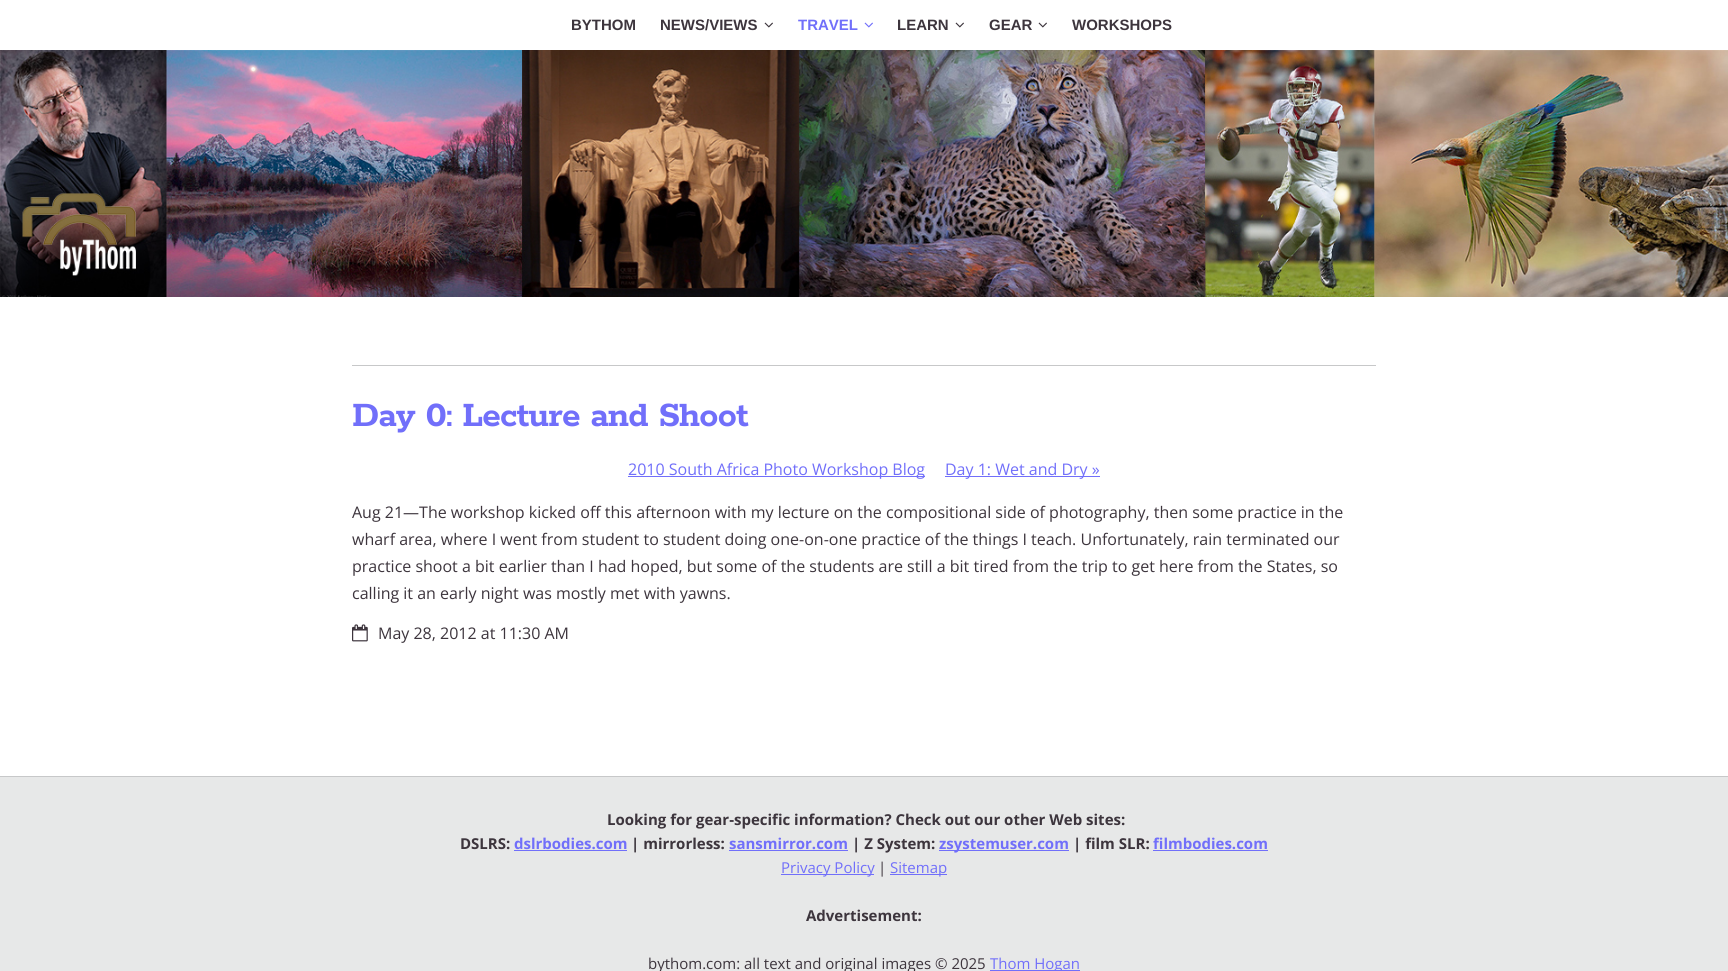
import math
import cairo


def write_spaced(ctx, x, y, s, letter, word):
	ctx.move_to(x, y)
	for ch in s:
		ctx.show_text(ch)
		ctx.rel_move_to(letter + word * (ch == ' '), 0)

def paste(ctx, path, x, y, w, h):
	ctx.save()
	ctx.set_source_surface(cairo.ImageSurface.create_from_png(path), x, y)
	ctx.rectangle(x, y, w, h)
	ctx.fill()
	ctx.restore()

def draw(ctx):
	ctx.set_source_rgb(0.906, 0.91, 0.91)
	ctx.paint()
	ctx.set_source_rgb(1, 1, 1)
	ctx.rectangle(0, 0, 1728, 776)
	ctx.fill()
	paste(ctx, 'media/1.png', 0, 50, 1728, 247)
	ctx.select_font_face('Liberation Sans', cairo.FONT_SLANT_NORMAL, cairo.FONT_WEIGHT_BOLD)
	ctx.set_font_size(15)
	ctx.set_source_rgb(0.239, 0.208, 0.239)
	ctx.move_to(571, 30)
	ctx.show_text('BYTHOM')
	ctx.move_to(660, 30)
	ctx.show_text('NEWS/VIEWS')
	paste(ctx, 'media/2.png', 764, 22, 9, 6)
	ctx.set_source_rgb(0.443, 0.435, 0.98)
	ctx.move_to(798, 30)
	ctx.show_text('TRAVEL')
	paste(ctx, 'media/3.png', 864, 22, 9, 6)
	ctx.set_source_rgb(0.239, 0.208, 0.239)
	ctx.move_to(897, 30)
	ctx.show_text('LEARN')
	paste(ctx, 'media/2.png', 955, 22, 9, 6)
	ctx.move_to(989, 30)
	ctx.show_text('GEAR')
	paste(ctx, 'media/2.png', 1038, 22, 9, 6)
	ctx.move_to(1072, 30)
	ctx.show_text('WORKSHOPS')
	ctx.set_source_rgb(0.78, 0.784, 0.788)
	ctx.rectangle(352, 365, 1024, 1)
	ctx.fill()
	ctx.select_font_face('Rokkitt', cairo.FONT_SLANT_NORMAL, cairo.FONT_WEIGHT_BOLD)
	ctx.set_font_size(38)
	ctx.set_source_rgb(0.443, 0.435, 0.98)
	write_spaced(ctx, 352, 426, 'Day 0: Lecture and Shoot', -0.75, 0)
	ctx.rectangle(628, 476, 297, 1)
	ctx.fill()
	ctx.select_font_face('Open Sans')
	ctx.set_font_size(16)
	ctx.move_to(628, 475)
	ctx.show_text('2010 South Africa Photo Workshop Blog')
	ctx.rectangle(945, 476, 155, 1)
	ctx.fill()
	ctx.move_to(945, 475)
	ctx.show_text('Day 1: Wet and Dry »')
	ctx.set_source_rgb(0.239, 0.208, 0.239)
	for x, y, s in [
		(352, 518, 'Aug 21—The workshop kicked off this afternoon with my lecture on the compositional side of photography, then some practice in the'),
		(352, 545, 'wharf area, where I went from student to student doing one-on-one practice of the things I teach. Unfortunately, rain terminated our'),
		(352, 572, 'practice shoot a bit earlier than I had hoped, but some of the students are still a bit tired from the trip to get here from the States, so'),
		(352, 599, 'calling it an early night was mostly met with yawns.'),
	]:
		ctx.move_to(x, y)
		ctx.show_text(s)
	paste(ctx, 'media/4.png', 352, 624, 16, 18)
	ctx.move_to(378, 639)
	ctx.show_text('May 28, 2012 at 11:30 AM')
	ctx.set_source_rgb(0.78, 0.784, 0.788)
	ctx.rectangle(0, 776, 1728, 1)
	ctx.fill()
	ctx.select_font_face('Open Sans', cairo.FONT_SLANT_NORMAL, cairo.FONT_WEIGHT_BOLD)
	ctx.set_font_size(15)
	ctx.set_source_rgb(0.239, 0.208, 0.239)
	ctx.move_to(607, 825)
	ctx.show_text('Looking for gear-specific information? Check out our other Web sites:')
	ctx.move_to(460, 849)
	ctx.show_text('DSLRS:')
	ctx.set_source_rgb(0.443, 0.435, 0.98)
	ctx.move_to(514, 849)
	ctx.show_text('dslrbodies.com')
	ctx.rectangle(514, 850, 113, 1)
	ctx.fill()
	ctx.set_source_rgb(0.239, 0.208, 0.239)
	ctx.move_to(631, 849)
	ctx.show_text('| mirrorless:')
	ctx.set_source_rgb(0.443, 0.435, 0.98)
	ctx.move_to(729, 849)
	ctx.show_text('sansmirror.com')
	ctx.rectangle(729, 850, 119, 1)
	ctx.fill()
	ctx.set_source_rgb(0.239, 0.208, 0.239)
	ctx.move_to(852, 849)
	ctx.show_text('| Z System:')
	ctx.set_source_rgb(0.443, 0.435, 0.98)
	ctx.rectangle(939, 850, 130, 1)
	ctx.fill()
	ctx.move_to(939, 849)
	ctx.show_text('zsystemuser.com')
	ctx.set_source_rgb(0.239, 0.208, 0.239)
	ctx.move_to(1073, 849)
	ctx.show_text('| film SLR:')
	ctx.set_source_rgb(0.443, 0.435, 0.98)
	ctx.move_to(1153, 849)
	ctx.show_text('filmbodies.com')
	ctx.rectangle(1153, 850, 115, 1)
	ctx.fill()
	ctx.rectangle(781, 874, 93, 1)
	ctx.fill()
	ctx.select_font_face('Open Sans')
	ctx.move_to(781, 873)
	ctx.show_text('Privacy Policy')
	ctx.set_source_rgb(0.239, 0.208, 0.239)
	ctx.move_to(878, 873)
	ctx.show_text('|')
	ctx.set_source_rgb(0.443, 0.435, 0.98)
	ctx.rectangle(890, 874, 57, 1)
	ctx.fill()
	ctx.move_to(890, 873)
	ctx.show_text('Sitemap')
	ctx.select_font_face('Open Sans', cairo.FONT_SLANT_NORMAL, cairo.FONT_WEIGHT_BOLD)
	ctx.set_source_rgb(0.239, 0.208, 0.239)
	ctx.move_to(806, 921)
	ctx.show_text('Advertisement:')
	ctx.select_font_face('Open Sans')
	ctx.move_to(648, 969)
	ctx.show_text('bythom.com: all text and original images © 2025')
	ctx.set_source_rgb(0.443, 0.435, 0.98)
	ctx.rectangle(990, 970, 90, 1)
	ctx.fill()
	ctx.move_to(990, 969)
	ctx.show_text('Thom Hogan')


surface = cairo.ImageSurface(cairo.FORMAT_RGB24, 1728, 971)
ctx = cairo.Context(surface)
options = cairo.FontOptions()
options.set_hint_metrics(cairo.HINT_METRICS_OFF)
options.set_hint_style(cairo.HINT_STYLE_NONE)
ctx.set_font_options(options)
ctx.set_miter_limit(4)
draw(ctx)
surface.write_to_png('image.png')
